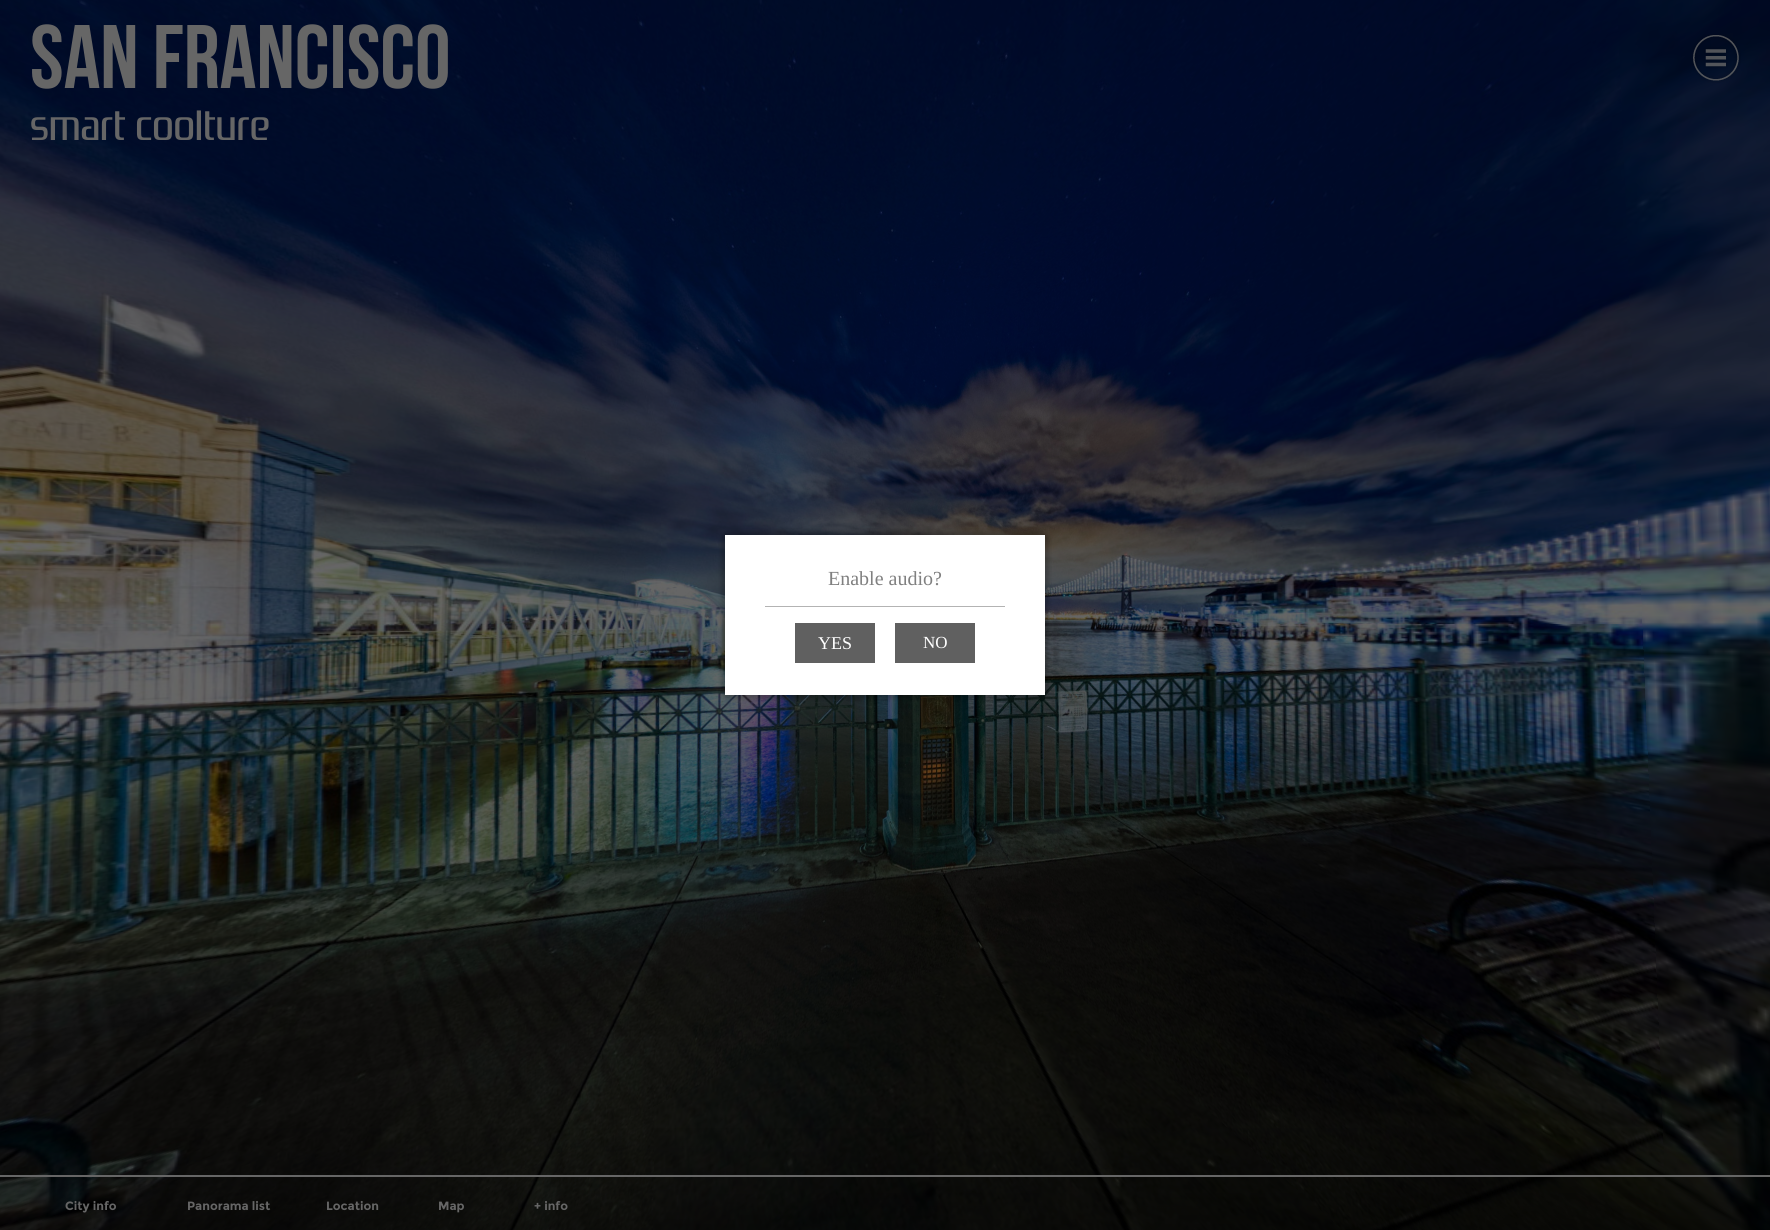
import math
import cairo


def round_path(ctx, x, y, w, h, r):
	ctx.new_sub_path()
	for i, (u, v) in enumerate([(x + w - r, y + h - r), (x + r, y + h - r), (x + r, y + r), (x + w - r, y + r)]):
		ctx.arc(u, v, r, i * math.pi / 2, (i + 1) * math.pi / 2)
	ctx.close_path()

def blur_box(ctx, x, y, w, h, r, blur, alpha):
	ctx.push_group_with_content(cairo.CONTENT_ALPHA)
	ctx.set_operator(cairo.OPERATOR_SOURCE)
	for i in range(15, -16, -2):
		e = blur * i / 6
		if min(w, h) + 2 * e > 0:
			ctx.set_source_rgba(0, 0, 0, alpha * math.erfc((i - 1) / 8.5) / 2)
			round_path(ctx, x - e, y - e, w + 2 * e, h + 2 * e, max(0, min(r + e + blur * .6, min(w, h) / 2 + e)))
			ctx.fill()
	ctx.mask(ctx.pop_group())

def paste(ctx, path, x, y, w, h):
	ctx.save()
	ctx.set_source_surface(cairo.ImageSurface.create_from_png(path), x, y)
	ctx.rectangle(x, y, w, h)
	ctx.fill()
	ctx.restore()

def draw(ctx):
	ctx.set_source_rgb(1, 1, 1)
	ctx.paint()
	paste(ctx, 'media/1.png', 0, 0, 1770, 1230)
	ctx.select_font_face('Bebas Neue', cairo.FONT_SLANT_NORMAL, cairo.FONT_WEIGHT_BOLD)
	ctx.set_font_size(90)
	ctx.set_source_rgb(0.4, 0.4, 0.4)
	ctx.move_to(30, 88)
	ctx.show_text('SAN FRANCISCO')
	ctx.select_font_face('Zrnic')
	ctx.set_font_size(41)
	ctx.move_to(30, 140)
	ctx.show_text('smart coolture')
	paste(ctx, 'media/2.png', 1692, 34, 49, 49)
	ctx.set_source_rgb(0, 0, 0)
	blur_box(ctx, 721, 531, 328, 168, 8, 2, 0.2)
	ctx.set_source_rgb(1, 1, 1)
	ctx.rectangle(725, 535, 320, 160)
	ctx.fill()
	ctx.select_font_face('Liberation Serif')
	ctx.set_font_size(20)
	ctx.set_source_rgb(0.502, 0.502, 0.502)
	ctx.move_to(828, 585)
	ctx.show_text('Enable audio?')
	ctx.set_source_rgb(0.702, 0.702, 0.702)
	ctx.rectangle(765, 606, 240, 1)
	ctx.fill()
	ctx.set_source_rgb(0.376, 0.376, 0.376)
	ctx.rectangle(795, 623, 80, 40)
	ctx.fill()
	ctx.set_font_size(18)
	ctx.set_source_rgb(1, 1, 1)
	ctx.move_to(818, 649)
	ctx.show_text('YES')
	ctx.set_source_rgb(0.376, 0.376, 0.376)
	ctx.rectangle(895, 623, 80, 40)
	ctx.fill()
	ctx.set_font_size(17)
	ctx.set_source_rgb(1, 1, 1)
	ctx.move_to(923, 648)
	ctx.show_text('NO')
	paste(ctx, 'media/3.png', 0, 1128, 1770, 102)
	ctx.set_source_rgb(0.4, 0.4, 0.4)
	ctx.rectangle(0, 1175, 1770, 2)
	ctx.fill()
	ctx.select_font_face('Montserrat', cairo.FONT_SLANT_NORMAL, cairo.FONT_WEIGHT_BOLD)
	ctx.set_font_size(12)
	for x, y, s in [
		(65, 1210, 'City info'),
		(187, 1210, 'Panorama list'),
		(326, 1210, 'Location'),
		(438, 1210, 'Map'),
		(534, 1210, '+ info'),
	]:
		ctx.move_to(x, y)
		ctx.show_text(s)


surface = cairo.ImageSurface(cairo.FORMAT_RGB24, 1770, 1230)
ctx = cairo.Context(surface)
options = cairo.FontOptions()
options.set_hint_metrics(cairo.HINT_METRICS_OFF)
options.set_hint_style(cairo.HINT_STYLE_NONE)
ctx.set_font_options(options)
ctx.set_miter_limit(4)
draw(ctx)
surface.write_to_png('image.png')
